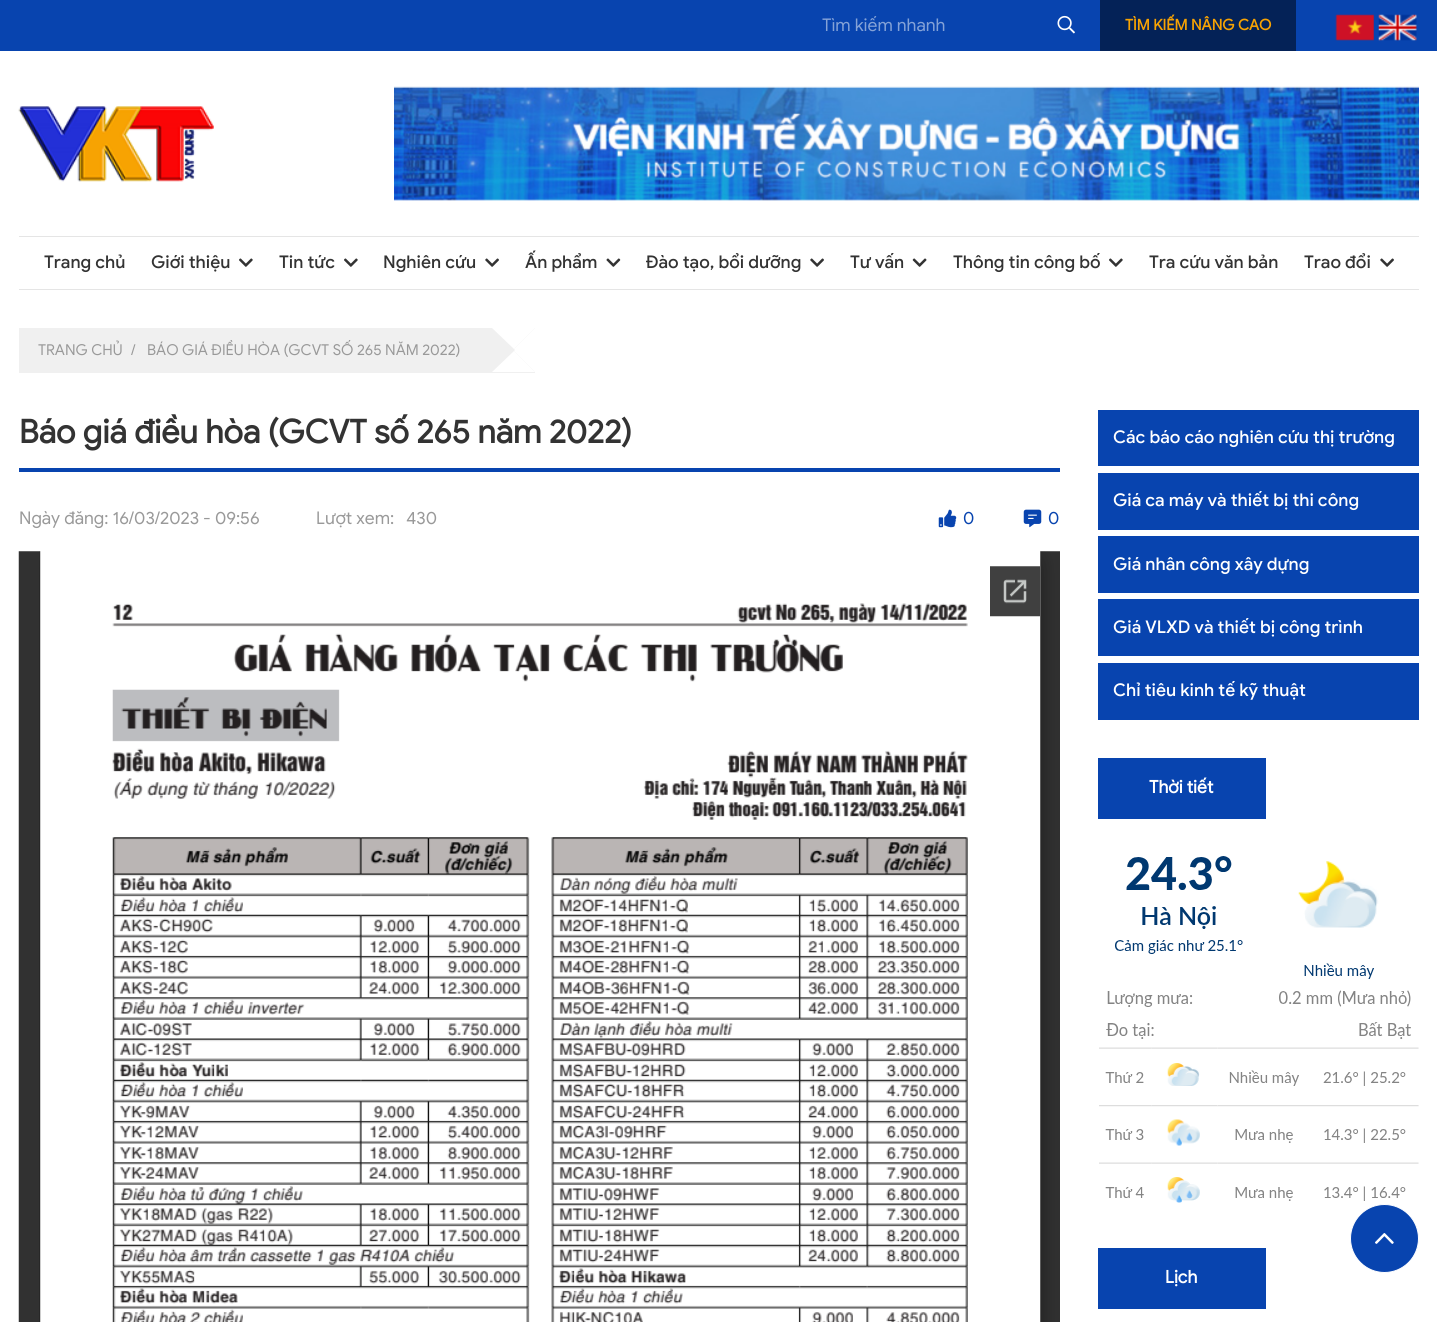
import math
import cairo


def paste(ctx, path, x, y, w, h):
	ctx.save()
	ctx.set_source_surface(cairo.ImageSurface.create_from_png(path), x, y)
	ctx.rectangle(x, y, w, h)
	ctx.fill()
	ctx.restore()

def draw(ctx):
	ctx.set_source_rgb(1, 1, 1)
	ctx.paint()
	ctx.set_source_rgb(0.035, 0.267, 0.686)
	ctx.rectangle(0, 0, 1437, 51)
	ctx.fill()
	ctx.select_font_face('Google Sans')
	ctx.set_font_size(17.5)
	ctx.set_source_rgb(0.518, 0.635, 0.843)
	ctx.move_to(822, 31)
	ctx.show_text('Tìm kiếm nhanh')
	paste(ctx, 'media/1.png', 1057, 15, 18, 19)
	ctx.set_source_rgb(0.016, 0.133, 0.341)
	ctx.rectangle(1100, 0, 196, 51)
	ctx.fill()
	ctx.select_font_face('Google Sans', cairo.FONT_SLANT_NORMAL, cairo.FONT_WEIGHT_BOLD)
	ctx.set_font_size(15)
	ctx.set_source_rgb(0.969, 0.639, 0.008)
	ctx.move_to(1125, 30)
	ctx.show_text('TÌM KIẾM NÂNG CAO')
	paste(ctx, 'media/2.png', 1335, 14, 39, 27)
	paste(ctx, 'media/3.png', 1378, 14, 39, 27)
	paste(ctx, 'media/4.png', 18, 106, 196, 76)
	paste(ctx, 'media/5.png', 394, 86, 1025, 115)
	ctx.set_source_rgb(0.898, 0.898, 0.898)
	ctx.rectangle(19, 236, 1400, 1)
	ctx.fill()
	ctx.rectangle(19, 289, 1400, 1)
	ctx.fill()
	ctx.select_font_face('Google Sans Medium')
	ctx.set_font_size(17.5)
	ctx.set_source_rgb(0.2, 0.2, 0.2)
	ctx.move_to(44, 268)
	ctx.show_text('Trang chủ')
	ctx.move_to(151, 268)
	ctx.show_text('Giới thiệu')
	paste(ctx, 'media/6.png', 239, 258, 14, 9)
	ctx.move_to(279, 268)
	ctx.show_text('Tin tức')
	paste(ctx, 'media/6.png', 344, 258, 14, 9)
	ctx.move_to(383, 268)
	ctx.show_text('Nghiên cứu')
	paste(ctx, 'media/7.png', 485, 258, 14, 9)
	ctx.move_to(525, 268)
	ctx.show_text('Ấn phẩm')
	paste(ctx, 'media/8.png', 606, 258, 15, 9)
	ctx.move_to(646, 268)
	ctx.show_text('Đào tạo, bổi dưỡng')
	paste(ctx, 'media/7.png', 810, 258, 14, 9)
	ctx.move_to(850, 268)
	ctx.show_text('Tư vấn')
	paste(ctx, 'media/9.png', 912, 258, 15, 9)
	ctx.move_to(953, 268)
	ctx.show_text('Thông tin công bố')
	paste(ctx, 'media/6.png', 1109, 258, 14, 9)
	ctx.move_to(1149, 268)
	ctx.show_text('Tra cứu văn bản')
	ctx.move_to(1304, 268)
	ctx.show_text('Trao đổi')
	paste(ctx, 'media/7.png', 1380, 258, 14, 9)
	ctx.set_source_rgb(0.941, 0.941, 0.941)
	ctx.rectangle(19, 328, 516, 45)
	ctx.fill()
	ctx.set_source_rgb(1, 1, 1)
	ctx.new_path()
	ctx.move_to(492, 328)
	ctx.line_to(535, 328)
	ctx.line_to(514, 349)
	ctx.close_path()
	ctx.fill()
	ctx.new_path()
	ctx.move_to(535, 328)
	ctx.line_to(535, 370)
	ctx.line_to(514, 349)
	ctx.close_path()
	ctx.fill()
	ctx.select_font_face('Google Sans')
	ctx.set_font_size(15)
	ctx.set_source_rgb(0.6, 0.6, 0.6)
	for x, y, s in [
		(38, 355, 'TRANG CHỦ'),
		(131, 355, '/'),
		(147, 355, 'BÁO GIÁ ĐIỀU HÒA (GCVT SỐ 265 NĂM 2022)'),
	]:
		ctx.move_to(x, y)
		ctx.show_text(s)
	ctx.set_source_rgb(1, 1, 1)
	ctx.new_path()
	ctx.move_to(535, 330)
	ctx.line_to(535, 372)
	ctx.line_to(514, 351)
	ctx.close_path()
	ctx.fill()
	ctx.new_path()
	ctx.move_to(535, 372)
	ctx.line_to(492, 372)
	ctx.line_to(514, 351)
	ctx.close_path()
	ctx.fill()
	ctx.set_source_rgb(0.035, 0.267, 0.686)
	ctx.rectangle(19, 468, 1041, 4)
	ctx.fill()
	ctx.select_font_face('Google Sans', cairo.FONT_SLANT_NORMAL, cairo.FONT_WEIGHT_BOLD)
	ctx.set_font_size(32.5)
	ctx.set_source_rgb(0.2, 0.2, 0.2)
	ctx.move_to(19, 443)
	ctx.show_text('Báo giá điều hòa (GCVT số 265 năm 2022)')
	ctx.select_font_face('Google Sans')
	ctx.set_font_size(17.5)
	ctx.set_source_rgb(0.6, 0.6, 0.6)
	for x, y, s in [
		(19, 524, 'Ngày đăng: 16/03/2023 - 09:56'),
		(316, 524, 'Lượt xem:'),
		(406, 524, '430'),
	]:
		ctx.move_to(x, y)
		ctx.show_text(s)
	paste(ctx, 'media/10.png', 938, 509, 19, 19)
	ctx.set_source_rgb(0.035, 0.267, 0.686)
	ctx.move_to(963, 524)
	ctx.show_text('0')
	paste(ctx, 'media/11.png', 1023, 509, 19, 19)
	ctx.move_to(1048, 524)
	ctx.show_text('0')
	paste(ctx, 'media/12.png', 18, 551, 1042, 771)
	ctx.rectangle(1098, 410, 321, 56)
	ctx.fill()
	ctx.select_font_face('Google Sans Medium')
	ctx.set_source_rgb(1, 1, 1)
	ctx.move_to(1113, 443)
	ctx.show_text('Các báo cáo nghiên cứu thị trường')
	ctx.set_source_rgb(0.035, 0.267, 0.686)
	ctx.rectangle(1098, 473, 321, 57)
	ctx.fill()
	ctx.set_source_rgb(1, 1, 1)
	ctx.move_to(1113, 506)
	ctx.show_text('Giá ca máy và thiết bị thi công')
	ctx.set_source_rgb(0.035, 0.267, 0.686)
	ctx.rectangle(1098, 536, 321, 57)
	ctx.fill()
	ctx.set_source_rgb(1, 1, 1)
	ctx.move_to(1113, 570)
	ctx.show_text('Giá nhân công xây dựng')
	ctx.set_source_rgb(0.035, 0.267, 0.686)
	ctx.rectangle(1098, 599, 321, 57)
	ctx.fill()
	ctx.set_source_rgb(1, 1, 1)
	ctx.move_to(1113, 633)
	ctx.show_text('Giá VLXD và thiết bị công trình')
	ctx.set_source_rgb(0.035, 0.267, 0.686)
	ctx.rectangle(1098, 663, 321, 57)
	ctx.fill()
	ctx.set_source_rgb(1, 1, 1)
	ctx.move_to(1113, 696)
	ctx.show_text('Chỉ tiêu kinh tế kỹ thuật')
	ctx.set_source_rgb(0.035, 0.267, 0.686)
	ctx.rectangle(1098, 758, 168, 61)
	ctx.fill()
	ctx.select_font_face('Google Sans', cairo.FONT_SLANT_NORMAL, cairo.FONT_WEIGHT_BOLD)
	ctx.set_source_rgb(1, 1, 1)
	ctx.move_to(1149, 793)
	ctx.show_text('Thời tiết')
	paste(ctx, 'media/13.png', 1099, 856, 320, 347)
	ctx.set_source_rgb(0.035, 0.267, 0.686)
	ctx.rectangle(1098, 1248, 168, 61)
	ctx.fill()
	ctx.set_source_rgb(1, 1, 1)
	ctx.move_to(1165, 1283)
	ctx.show_text('Lịch')
	ctx.set_source_rgb(0.035, 0.267, 0.686)
	ctx.new_path()
	ctx.arc(1384.5, 1238.5, 34, 0, 2 * math.pi)
	ctx.fill_preserve()
	ctx.set_source_rgb(1, 1, 1)
	ctx.set_line_width(1)
	ctx.stroke()
	paste(ctx, 'media/14.png', 1375, 1233, 19, 11)


surface = cairo.ImageSurface(cairo.FORMAT_RGB24, 1437, 1322)
ctx = cairo.Context(surface)
options = cairo.FontOptions()
options.set_hint_metrics(cairo.HINT_METRICS_OFF)
options.set_hint_style(cairo.HINT_STYLE_NONE)
ctx.set_font_options(options)
ctx.set_miter_limit(4)
draw(ctx)
surface.write_to_png('image.png')
